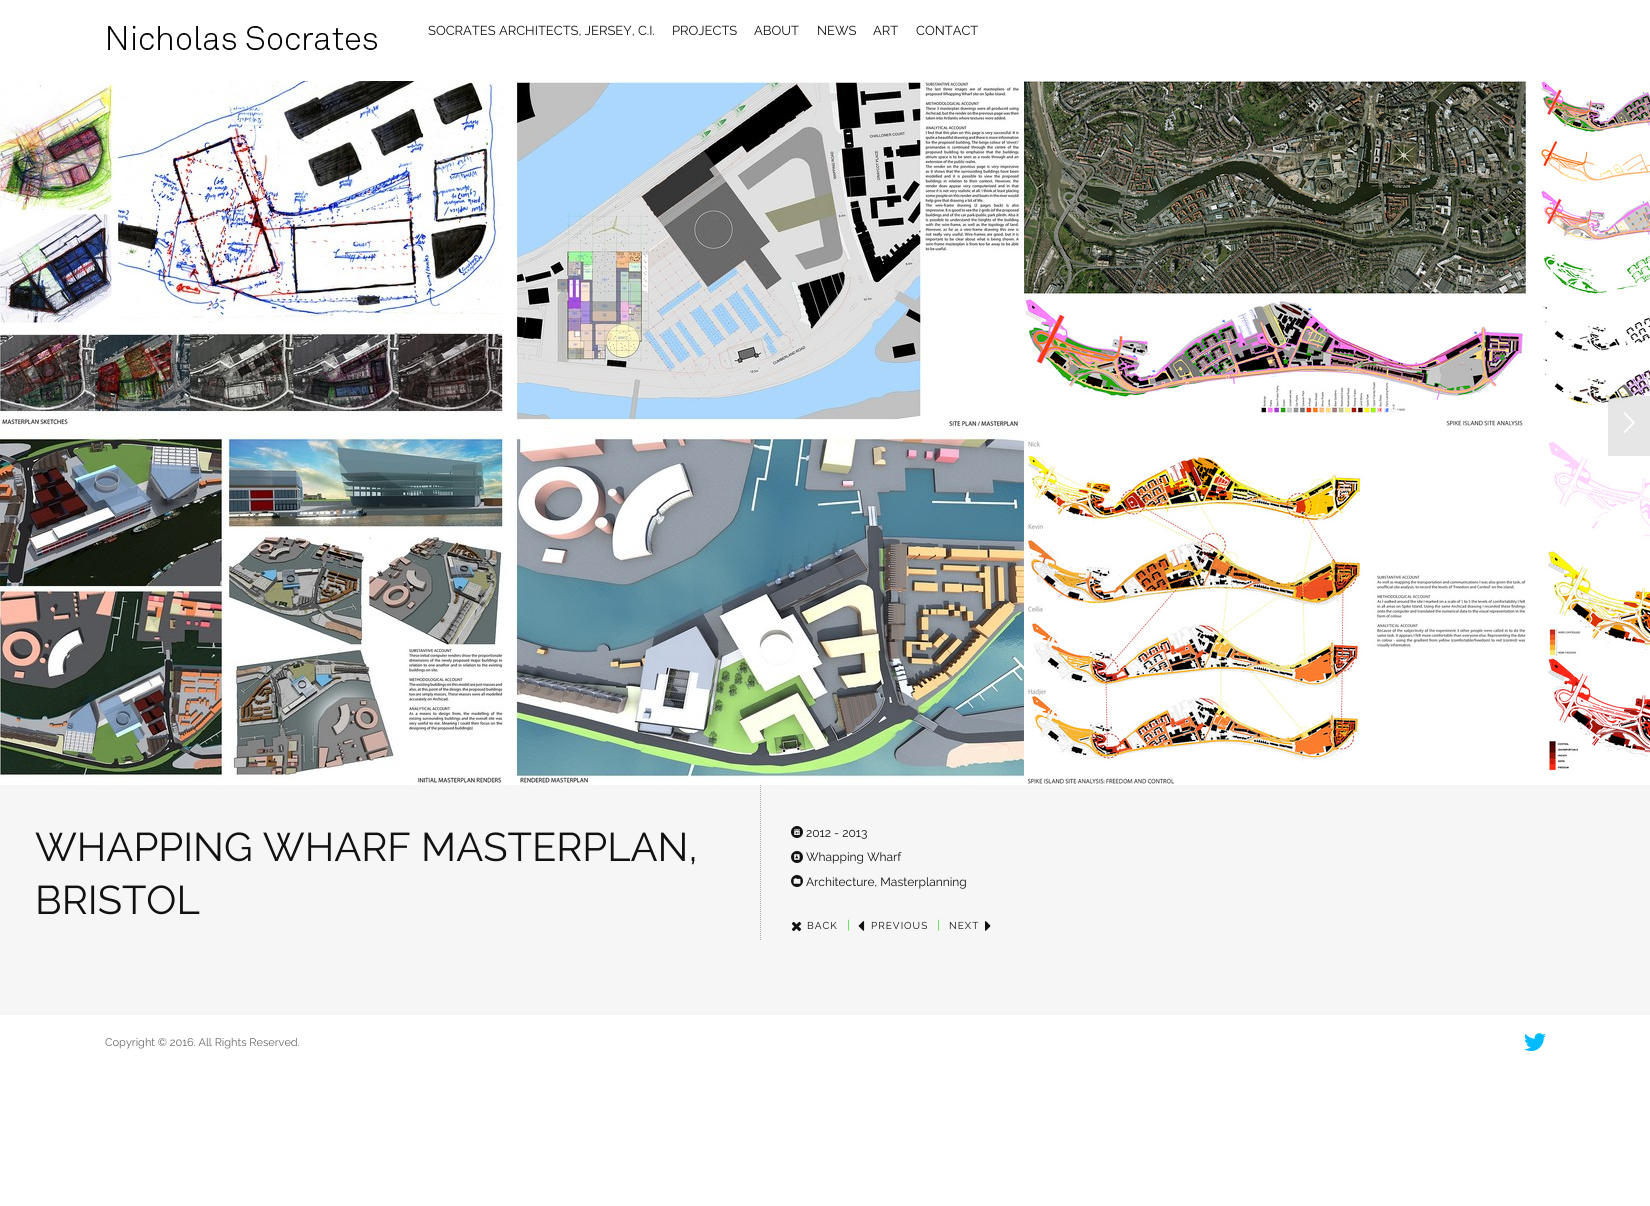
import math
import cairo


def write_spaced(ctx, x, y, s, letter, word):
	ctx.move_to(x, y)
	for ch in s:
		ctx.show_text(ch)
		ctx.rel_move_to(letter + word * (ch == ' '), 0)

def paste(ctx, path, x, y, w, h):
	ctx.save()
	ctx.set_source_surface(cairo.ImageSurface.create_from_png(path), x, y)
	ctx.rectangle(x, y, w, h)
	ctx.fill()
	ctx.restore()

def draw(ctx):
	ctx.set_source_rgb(1, 1, 1)
	ctx.paint()
	paste(ctx, 'media/1.png', 108, 26, 269, 24)
	ctx.select_font_face('Raleway Thin')
	ctx.set_font_size(13)
	ctx.set_source_rgb(0.067, 0.067, 0.067)
	for x, y, s in [
		(428, 35, 'SOCRATES ARCHITECTS, JERSEY, C.I.'),
		(672, 35, 'PROJECTS'),
		(754, 35, 'ABOUT'),
		(817, 35, 'NEWS'),
		(873, 35, 'ART'),
		(916, 35, 'CONTACT'),
	]:
		ctx.move_to(x, y)
		ctx.show_text(s)
	ctx.set_source_rgb(0.961, 0.961, 0.961)
	ctx.rectangle(0, 785, 1650, 230)
	ctx.fill()
	paste(ctx, 'media/2.png', 0, 81, 1024, 704)
	paste(ctx, 'media/3.png', 1024, 81, 626, 704)
	paste(ctx, 'media/4.png', 16, 419, 5, 5)
	ctx.set_source_rgba(0, 0, 0, 0.1)
	ctx.rectangle(1608, 396, 42, 60)
	ctx.fill()
	paste(ctx, 'media/5.png', 1623, 412, 12, 22)
	ctx.new_path()
	ctx.move_to(760.5, 785)
	ctx.line_to(760.5, 940)
	ctx.set_source_rgb(0.671, 0.671, 0.671)
	ctx.set_line_width(1)
	ctx.set_dash([1, 1])
	ctx.stroke()
	ctx.set_font_size(40)
	ctx.set_source_rgb(0.067, 0.067, 0.067)
	ctx.move_to(35, 861)
	ctx.show_text('WHAPPING WHARF MASTERPLAN,')
	ctx.move_to(35, 914)
	ctx.show_text('BRISTOL')
	paste(ctx, 'media/6.png', 791, 826, 12, 12)
	ctx.set_font_size(12)
	ctx.move_to(806, 837)
	ctx.show_text('2012 - 2013')
	paste(ctx, 'media/7.png', 791, 851, 12, 12)
	ctx.move_to(806, 861)
	ctx.show_text('Whapping Wharf')
	paste(ctx, 'media/8.png', 791, 875, 12, 12)
	ctx.move_to(806, 886)
	ctx.show_text('Architecture, Masterplanning')
	paste(ctx, 'media/9.png', 791, 921, 11, 11)
	ctx.set_font_size(10)
	write_spaced(ctx, 807, 929, 'BACK', 1, 0)
	ctx.set_font_size(12)
	ctx.set_source_rgb(0.2, 0.878, 0.125)
	ctx.move_to(847, 929)
	ctx.show_text('|')
	paste(ctx, 'media/10.png', 858, 921, 7, 10)
	ctx.set_font_size(10)
	ctx.set_source_rgb(0.067, 0.067, 0.067)
	write_spaced(ctx, 871, 929, 'PREVIOUS', 1, 0)
	ctx.set_font_size(12)
	ctx.set_source_rgb(0.2, 0.878, 0.125)
	ctx.move_to(937, 929)
	ctx.show_text('|')
	ctx.set_font_size(10)
	ctx.set_source_rgb(0.067, 0.067, 0.067)
	write_spaced(ctx, 949, 929, 'NEXT', 1, 0)
	paste(ctx, 'media/11.png', 985, 921, 6, 10)
	ctx.set_font_size(11)
	ctx.set_source_rgb(0.4, 0.4, 0.4)
	ctx.move_to(105, 1046)
	ctx.show_text('Copyright © 2016. All Rights Reserved.')
	paste(ctx, 'media/12.png', 1524, 1033, 22, 18)


surface = cairo.ImageSurface(cairo.FORMAT_RGB24, 1650, 1206)
ctx = cairo.Context(surface)
options = cairo.FontOptions()
options.set_hint_metrics(cairo.HINT_METRICS_OFF)
options.set_hint_style(cairo.HINT_STYLE_NONE)
ctx.set_font_options(options)
ctx.set_miter_limit(4)
draw(ctx)
surface.write_to_png('image.png')
